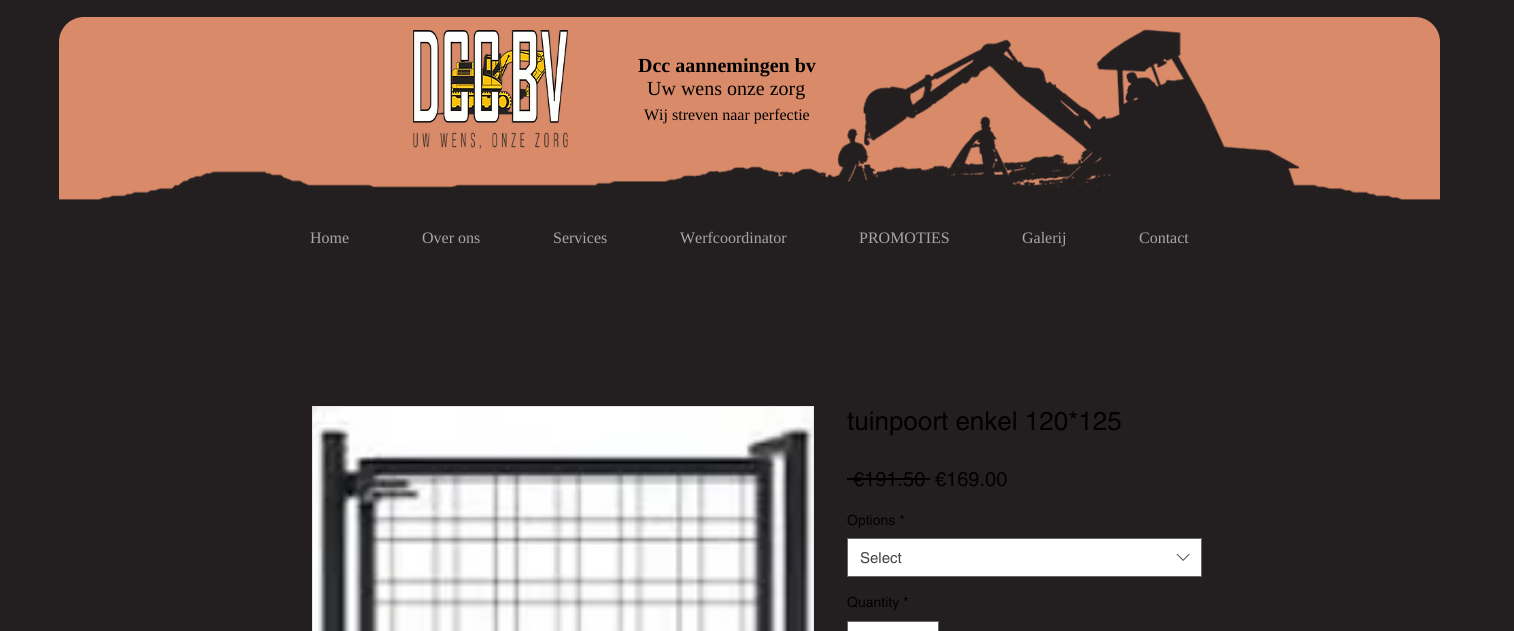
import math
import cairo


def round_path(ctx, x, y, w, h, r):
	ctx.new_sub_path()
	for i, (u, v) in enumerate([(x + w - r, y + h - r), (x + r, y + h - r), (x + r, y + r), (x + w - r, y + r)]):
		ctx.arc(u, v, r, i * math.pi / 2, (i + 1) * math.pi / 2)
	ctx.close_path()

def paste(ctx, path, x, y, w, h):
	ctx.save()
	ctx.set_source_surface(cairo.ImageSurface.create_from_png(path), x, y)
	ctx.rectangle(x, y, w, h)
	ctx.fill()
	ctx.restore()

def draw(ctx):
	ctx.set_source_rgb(0.137, 0.122, 0.125)
	ctx.paint()
	ctx.set_source_rgb(0.851, 0.541, 0.412)
	round_path(ctx, 59, 17, 1381, 242, 25)
	ctx.fill()
	paste(ctx, 'media/1.png', 59, 29, 1381, 184)
	paste(ctx, 'media/2.png', 413, 30, 155, 119)
	ctx.select_font_face('Liberation Serif', cairo.FONT_SLANT_NORMAL, cairo.FONT_WEIGHT_BOLD)
	ctx.set_font_size(20)
	ctx.set_source_rgb(0, 0, 0)
	ctx.move_to(638, 72)
	ctx.show_text('Dcc aannemingen bv')
	ctx.select_font_face('Liberation Serif')
	ctx.move_to(647, 95)
	ctx.show_text('Uw wens onze zorg')
	ctx.set_font_size(16)
	ctx.move_to(644, 120)
	ctx.show_text('Wij streven naar perfectie')
	ctx.set_source_rgb(0.137, 0.122, 0.125)
	ctx.rectangle(59, 213, 1381, 46)
	ctx.fill()
	ctx.set_source_rgb(0.655, 0.647, 0.651)
	for x, y, s in [
		(310, 243, 'Home'),
		(422, 243, 'Over ons'),
		(553, 243, 'Services'),
		(680, 243, 'Werfcoordinator'),
		(859, 243, 'PROMOTIES'),
		(1022, 243, 'Galerij'),
		(1139, 243, 'Contact'),
	]:
		ctx.move_to(x, y)
		ctx.show_text(s)
	ctx.rectangle(312.5, 406.5, 501, 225)
	ctx.set_source_rgb(0.91, 0.902, 0.902)
	ctx.set_line_width(1)
	ctx.stroke()
	paste(ctx, 'media/3.png', 313, 407, 500, 224)
	ctx.select_font_face('helvetica')
	ctx.set_font_size(26)
	ctx.set_source_rgb(0, 0, 0)
	ctx.move_to(847, 430)
	ctx.show_text('tuinpoort enkel 120*125')
	ctx.set_font_size(20)
	ctx.move_to(853, 486)
	ctx.show_text('€191.50')
	ctx.rectangle(847, 478, 83, 2)
	ctx.fill()
	ctx.move_to(935, 486)
	ctx.show_text('€169.00')
	ctx.set_font_size(14)
	ctx.move_to(847, 525)
	ctx.show_text('Options *')
	ctx.set_source_rgb(1, 1, 1)
	ctx.rectangle(847.5, 538.5, 354, 38)
	ctx.fill_preserve()
	ctx.set_source_rgb(0.4, 0.4, 0.4)
	ctx.stroke()
	ctx.set_font_size(15)
	ctx.set_source_rgb(0.267, 0.267, 0.267)
	ctx.move_to(860, 563)
	ctx.show_text('Select')
	paste(ctx, 'media/4.png', 1176, 553, 14, 8)
	ctx.set_font_size(14)
	ctx.set_source_rgb(0, 0, 0)
	ctx.move_to(847, 607)
	ctx.show_text('Quantity *')
	ctx.set_source_rgb(1, 1, 1)
	ctx.rectangle(847.5, 621.5, 91, 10)
	ctx.fill_preserve()
	ctx.set_source_rgb(0.4, 0.4, 0.4)
	ctx.stroke()


surface = cairo.ImageSurface(cairo.FORMAT_RGB24, 1514, 631)
ctx = cairo.Context(surface)
options = cairo.FontOptions()
options.set_hint_metrics(cairo.HINT_METRICS_OFF)
options.set_hint_style(cairo.HINT_STYLE_NONE)
ctx.set_font_options(options)
ctx.set_miter_limit(4)
draw(ctx)
surface.write_to_png('image.png')
